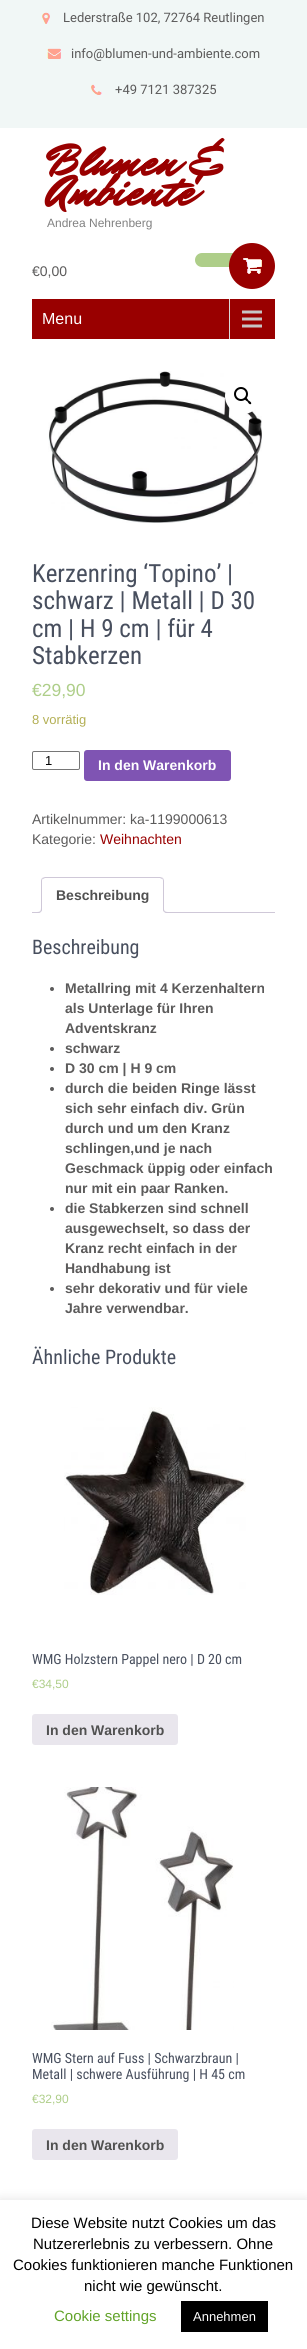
import math
import cairo


def round_path(ctx, x, y, w, h, r):
	ctx.new_sub_path()
	for i, (u, v) in enumerate([(x + w - r, y + h - r), (x + r, y + h - r), (x + r, y + r), (x + w - r, y + r)]):
		ctx.arc(u, v, r, i * math.pi / 2, (i + 1) * math.pi / 2)
	ctx.close_path()

def blur_box(ctx, x, y, w, h, r, blur, alpha):
	ctx.push_group_with_content(cairo.CONTENT_ALPHA)
	ctx.set_operator(cairo.OPERATOR_SOURCE)
	for i in range(15, -16, -2):
		e = blur * i / 6
		if min(w, h) + 2 * e > 0:
			ctx.set_source_rgba(0, 0, 0, alpha * math.erfc((i - 1) / 8.5) / 2)
			round_path(ctx, x - e, y - e, w + 2 * e, h + 2 * e, max(0, min(r + e + blur * .6, min(w, h) / 2 + e)))
			ctx.fill()
	ctx.mask(ctx.pop_group())

def paste(ctx, path, x, y, w, h):
	ctx.save()
	ctx.set_source_surface(cairo.ImageSurface.create_from_png(path), x, y)
	ctx.rectangle(x, y, w, h)
	ctx.fill()
	ctx.restore()

def draw(ctx):
	ctx.set_source_rgb(1, 1, 1)
	ctx.paint()
	ctx.set_source_rgb(0.945, 0.965, 0.961)
	ctx.rectangle(0, 0, 307, 128)
	ctx.fill()
	paste(ctx, 'media/1.png', 42, 12, 8, 12)
	ctx.select_font_face('Roboto')
	ctx.set_font_size(13)
	ctx.set_source_rgb(0.361, 0.357, 0.357)
	ctx.move_to(63, 22)
	ctx.show_text('Lederstraße 102, 72764 Reutlingen')
	paste(ctx, 'media/2.png', 47, 48, 14, 11)
	ctx.move_to(71, 58)
	ctx.show_text('info@blumen-und-ambiente.com')
	paste(ctx, 'media/3.png', 91, 84, 11, 11)
	ctx.move_to(115, 94)
	ctx.show_text('+49 7121 387325')
	ctx.select_font_face('Mr Dafoe', cairo.FONT_SLANT_NORMAL, cairo.FONT_WEIGHT_BOLD)
	ctx.set_font_size(45)
	ctx.set_source_rgb(0.6, 0, 0)
	ctx.move_to(47, 175)
	ctx.show_text('Blumen &')
	ctx.move_to(47, 205)
	ctx.show_text('Ambiente')
	ctx.select_font_face('Liberation Sans')
	ctx.set_font_size(12)
	ctx.set_source_rgb(0.506, 0.506, 0.506)
	ctx.move_to(47, 227)
	ctx.show_text('Andrea Nehrenberg')
	ctx.set_source_rgb(0.682, 0.808, 0.537)
	round_path(ctx, 195, 253, 70, 14, 7)
	ctx.fill()
	ctx.set_source_rgb(0.6, 0, 0)
	ctx.arc(252, 266, 23, 0, 2 * math.pi)
	ctx.fill()
	paste(ctx, 'media/4.png', 243, 258, 19, 16)
	ctx.set_font_size(14)
	ctx.set_source_rgb(0.361, 0.357, 0.357)
	ctx.move_to(32, 276)
	ctx.show_text('€0,00')
	ctx.set_source_rgb(0.6, 0, 0)
	ctx.rectangle(32, 299, 243, 40)
	ctx.fill()
	paste(ctx, 'media/5.png', 229, 299, 33, 40)
	ctx.set_font_size(16)
	ctx.set_source_rgb(1, 1, 1)
	ctx.move_to(42, 324)
	ctx.show_text('Menu')
	paste(ctx, 'media/6.png', 48, 371, 214, 152)
	ctx.arc(243, 396, 18, 0, 2 * math.pi)
	ctx.fill()
	ctx.arc(241, 394, 6, 0, 2 * math.pi)
	ctx.set_source_rgb(0, 0, 0)
	ctx.stroke()
	ctx.new_path()
	ctx.move_to(245, 398)
	ctx.curve_to(246.5, 397, 248, 399.5, 248.5, 400.5)
	ctx.curve_to(249.5, 401, 252, 402.5, 251, 404)
	ctx.curve_to(249.5, 405, 248, 402.5, 247.5, 401.5)
	ctx.curve_to(246.5, 401, 244, 399.5, 245, 398)
	ctx.close_path()
	ctx.fill()
	ctx.select_font_face('Roboto Condensed')
	ctx.set_font_size(25)
	ctx.set_source_rgb(0.282, 0.31, 0.369)
	for x, y, s in [
		(32, 582, 'Kerzenring ‘Topino’ |'),
		(32, 609, 'schwarz | Metall | D 30'),
		(32, 637, 'cm | H 9 cm | für 4'),
		(32, 664, 'Stabkerzen'),
	]:
		ctx.move_to(x, y)
		ctx.show_text(s)
	ctx.select_font_face('Liberation Sans')
	ctx.set_font_size(17.5)
	ctx.set_source_rgb(0.682, 0.808, 0.537)
	ctx.move_to(32, 696)
	ctx.show_text('€29,90')
	ctx.set_font_size(13)
	ctx.set_source_rgb(0.702, 0.686, 0.329)
	ctx.move_to(32, 724)
	ctx.show_text('8 vorrätig')
	round_path(ctx, 32.5, 751.5, 47, 18, 1.5)
	ctx.set_source_rgb(0.463, 0.463, 0.463)
	ctx.set_line_width(1)
	ctx.stroke()
	ctx.set_source_rgb(0, 0, 0)
	ctx.move_to(45, 765)
	ctx.show_text('1')
	ctx.set_source_rgb(0.498, 0.329, 0.702)
	round_path(ctx, 84, 750, 147, 31, 3)
	ctx.fill()
	ctx.select_font_face('Liberation Sans', cairo.FONT_SLANT_NORMAL, cairo.FONT_WEIGHT_BOLD)
	ctx.set_font_size(14)
	ctx.set_source_rgb(1, 1, 1)
	ctx.move_to(98, 770)
	ctx.show_text('In den Warenkorb')
	ctx.select_font_face('Liberation Sans')
	ctx.set_source_rgb(0.361, 0.357, 0.357)
	ctx.move_to(32, 824)
	ctx.show_text('Artikelnummer: ka-1199000613')
	ctx.move_to(32, 844)
	ctx.show_text('Kategorie:')
	ctx.set_source_rgb(0.6, 0, 0)
	ctx.move_to(100, 844)
	ctx.show_text('Weihnachten')
	ctx.set_source_rgb(0.812, 0.784, 0.847)
	ctx.rectangle(32, 912, 243, 1)
	ctx.fill()
	ctx.set_source_rgb(1, 1, 1)
	ctx.new_path()
	ctx.move_to(45, 877)
	ctx.line_to(160, 877)
	ctx.curve_to(162, 877, 164, 879, 164, 881)
	ctx.line_to(164, 913)
	ctx.line_to(41, 913)
	ctx.line_to(41, 881)
	ctx.curve_to(41, 879, 43, 877, 45, 877)
	ctx.close_path()
	ctx.fill()
	ctx.set_source_rgb(0.812, 0.784, 0.847)
	ctx.new_path()
	ctx.move_to(45, 877)
	ctx.line_to(42, 878)
	ctx.line_to(43, 879)
	ctx.line_to(45, 878)
	ctx.line_to(160, 878)
	ctx.line_to(162, 879)
	ctx.line_to(163, 878)
	ctx.line_to(160, 877)
	ctx.close_path()
	ctx.fill()
	ctx.new_path()
	ctx.move_to(164, 913)
	ctx.line_to(164, 881)
	ctx.curve_to(164, 880, 163.5, 879, 163, 878)
	ctx.line_to(162, 879)
	ctx.curve_to(163, 879, 163, 880, 163, 881)
	ctx.line_to(163, 912)
	ctx.close_path()
	ctx.fill()
	ctx.set_source_rgb(1, 1, 1)
	ctx.new_path()
	ctx.move_to(164, 913)
	ctx.line_to(163, 912)
	ctx.line_to(42, 912)
	ctx.line_to(41, 913)
	ctx.close_path()
	ctx.fill()
	ctx.set_source_rgb(0.812, 0.784, 0.847)
	ctx.new_path()
	ctx.move_to(41, 913)
	ctx.line_to(42, 912)
	ctx.line_to(42, 881)
	ctx.curve_to(42, 880, 42, 879, 43, 879)
	ctx.line_to(42, 878)
	ctx.curve_to(41.5, 879, 41, 880, 41, 881)
	ctx.close_path()
	ctx.fill()
	ctx.select_font_face('Liberation Sans', cairo.FONT_SLANT_NORMAL, cairo.FONT_WEIGHT_BOLD)
	ctx.set_source_rgb(0.318, 0.318, 0.318)
	ctx.move_to(56, 900)
	ctx.show_text('Beschreibung')
	ctx.save()
	ctx.rectangle(32, 877, 243, 36)
	ctx.clip()
	ctx.set_source_rgb(1, 1, 1)
	ctx.new_path()
	ctx.move_to(39, 913)
	ctx.line_to(39, 915)
	ctx.curve_to(42.5, 915, 44, 913.5, 44, 910)
	ctx.line_to(42, 910)
	ctx.curve_to(41.5, 911.5, 40.5, 912.5, 39, 913)
	ctx.close_path()
	ctx.fill()
	ctx.restore()
	ctx.set_source_rgb(0.812, 0.784, 0.847)
	ctx.set_fill_rule(cairo.FILL_RULE_EVEN_ODD)
	ctx.new_path()
	ctx.move_to(37, 908)
	ctx.line_to(42, 908)
	ctx.curve_to(42, 911.5, 40.5, 913, 37, 913)
	ctx.close_path()
	ctx.move_to(37, 908)
	ctx.line_to(41, 908)
	ctx.curve_to(41, 911, 40, 912, 37, 912)
	ctx.close_path()
	ctx.fill()
	ctx.save()
	ctx.set_fill_rule(cairo.FILL_RULE_WINDING)
	ctx.rectangle(32, 877, 243, 36)
	ctx.clip()
	ctx.set_source_rgb(1, 1, 1)
	ctx.new_path()
	ctx.move_to(161, 910)
	ctx.curve_to(161, 913.5, 162.5, 915, 166, 915)
	ctx.line_to(166, 913)
	ctx.curve_to(164.5, 912.5, 163.5, 911.5, 163, 910)
	ctx.close_path()
	ctx.fill()
	ctx.restore()
	ctx.new_path()
	ctx.move_to(163, 908)
	ctx.line_to(168, 908)
	ctx.line_to(168, 913)
	ctx.curve_to(165.5, 913, 163, 912, 163, 909)
	ctx.close_path()
	ctx.move_to(164, 908)
	ctx.line_to(168, 908)
	ctx.line_to(168, 912)
	ctx.curve_to(166, 912, 164, 911.5, 164, 909)
	ctx.close_path()
	ctx.fill()
	ctx.select_font_face('Roboto Condensed')
	ctx.set_font_size(20)
	ctx.set_source_rgb(0.282, 0.31, 0.369)
	ctx.move_to(32, 954)
	ctx.show_text('Beschreibung')
	ctx.set_source_rgb(0.361, 0.357, 0.357)
	ctx.new_path()
	ctx.arc(52, 989, 2, 0, 2 * math.pi)
	ctx.fill()
	ctx.select_font_face('Liberation Sans', cairo.FONT_SLANT_NORMAL, cairo.FONT_WEIGHT_BOLD)
	ctx.set_font_size(14)
	for x, y, s in [
		(65, 993, 'Metallring mit 4 Kerzenhaltern'),
		(65, 1013, 'als Unterlage für Ihren'),
		(65, 1033, 'Adventskranz'),
	]:
		ctx.move_to(x, y)
		ctx.show_text(s)
	ctx.new_path()
	ctx.arc(52, 1049, 2, 0, 2 * math.pi)
	ctx.fill()
	ctx.move_to(65, 1053)
	ctx.show_text('schwarz')
	ctx.new_path()
	ctx.arc(52, 1069, 2, 0, 2 * math.pi)
	ctx.fill()
	ctx.move_to(65, 1073)
	ctx.show_text('D 30 cm | H 9 cm')
	ctx.new_path()
	ctx.arc(52, 1089, 2, 0, 2 * math.pi)
	ctx.fill()
	for x, y, s in [
		(65, 1093, 'durch die beiden Ringe lässt'),
		(65, 1113, 'sich sehr einfach div. Grün'),
		(65, 1133, 'durch und um den Kranz'),
		(65, 1153, 'schlingen,und je nach'),
		(65, 1173, 'Geschmack üppig oder einfach'),
		(65, 1193, 'nur mit ein paar Ranken.'),
	]:
		ctx.move_to(x, y)
		ctx.show_text(s)
	ctx.new_path()
	ctx.arc(52, 1209, 2, 0, 2 * math.pi)
	ctx.fill()
	for x, y, s in [
		(65, 1213, 'die Stabkerzen sind schnell'),
		(65, 1233, 'ausgewechselt, so dass der'),
		(65, 1253, 'Kranz recht einfach in der'),
		(65, 1273, 'Handhabung ist'),
	]:
		ctx.move_to(x, y)
		ctx.show_text(s)
	ctx.new_path()
	ctx.arc(52, 1289, 2, 0, 2 * math.pi)
	ctx.fill()
	ctx.move_to(65, 1293)
	ctx.show_text('sehr dekorativ und für viele')
	ctx.move_to(65, 1313)
	ctx.show_text('Jahre verwendbar.')
	ctx.select_font_face('Roboto Condensed')
	ctx.set_font_size(20)
	ctx.set_source_rgb(0.282, 0.31, 0.369)
	ctx.move_to(32, 1364)
	ctx.show_text('Ähnliche Produkte')
	paste(ctx, 'media/7.png', 64, 1407, 182, 188)
	ctx.set_font_size(14)
	ctx.move_to(32, 1664)
	ctx.show_text('WMG Holzstern Pappel nero | D 20 cm')
	ctx.select_font_face('Liberation Sans')
	ctx.set_font_size(12)
	ctx.set_source_rgb(0.682, 0.808, 0.537)
	ctx.move_to(32, 1688)
	ctx.show_text('€34,50')
	ctx.set_source_rgb(0.914, 0.902, 0.929)
	round_path(ctx, 32, 1714, 146, 31, 3)
	ctx.fill()
	ctx.select_font_face('Liberation Sans', cairo.FONT_SLANT_NORMAL, cairo.FONT_WEIGHT_BOLD)
	ctx.set_font_size(14)
	ctx.set_source_rgb(0.318, 0.318, 0.318)
	ctx.move_to(46, 1735)
	ctx.show_text('In den Warenkorb')
	paste(ctx, 'media/8.png', 51, 1787, 183, 243)
	ctx.select_font_face('Roboto Condensed')
	ctx.set_source_rgb(0.282, 0.31, 0.369)
	ctx.move_to(32, 2063)
	ctx.show_text('WMG Stern auf Fuss | Schwarzbraun |')
	ctx.move_to(32, 2079)
	ctx.show_text('Metall | schwere Ausführung | H 45 cm')
	ctx.select_font_face('Liberation Sans')
	ctx.set_font_size(12)
	ctx.set_source_rgb(0.682, 0.808, 0.537)
	ctx.move_to(32, 2103)
	ctx.show_text('€32,90')
	ctx.set_source_rgb(0.914, 0.902, 0.929)
	round_path(ctx, 32, 2129, 146, 31, 3)
	ctx.fill()
	ctx.select_font_face('Liberation Sans', cairo.FONT_SLANT_NORMAL, cairo.FONT_WEIGHT_BOLD)
	ctx.set_font_size(14)
	ctx.set_source_rgb(0.318, 0.318, 0.318)
	ctx.move_to(46, 2150)
	ctx.show_text('In den Warenkorb')
	ctx.set_source_rgb(0.675, 0.671, 0.671)
	blur_box(ctx, 0, 2199, 307, 149, 0, 5, 0.3)
	ctx.set_source_rgb(1, 1, 1)
	ctx.rectangle(0, 2200, 307, 149)
	ctx.fill()
	ctx.select_font_face('Liberation Sans')
	ctx.set_font_size(15)
	ctx.set_source_rgb(0, 0, 0)
	for x, y, s in [
		(31, 2228, 'Diese Website nutzt Cookies um das'),
		(33, 2249, 'Nutzererlebnis zu verbessern. Ohne'),
		(13, 2270, 'Cookies funktionieren manche Funktionen'),
		(84, 2291, 'nicht wie gewünscht.'),
	]:
		ctx.move_to(x, y)
		ctx.show_text(s)
	ctx.set_source_rgb(0.384, 0.639, 0.161)
	ctx.move_to(54, 2321)
	ctx.show_text('Cookie settings')
	ctx.set_source_rgb(0, 0, 0)
	ctx.rectangle(181, 2301, 87, 31)
	ctx.fill()
	ctx.set_font_size(13)
	ctx.set_source_rgb(1, 1, 1)
	ctx.move_to(193, 2321)
	ctx.show_text('Annehmen')


surface = cairo.ImageSurface(cairo.FORMAT_RGB24, 307, 2349)
ctx = cairo.Context(surface)
options = cairo.FontOptions()
options.set_hint_metrics(cairo.HINT_METRICS_OFF)
options.set_hint_style(cairo.HINT_STYLE_NONE)
ctx.set_font_options(options)
ctx.set_miter_limit(4)
draw(ctx)
surface.write_to_png('image.png')
